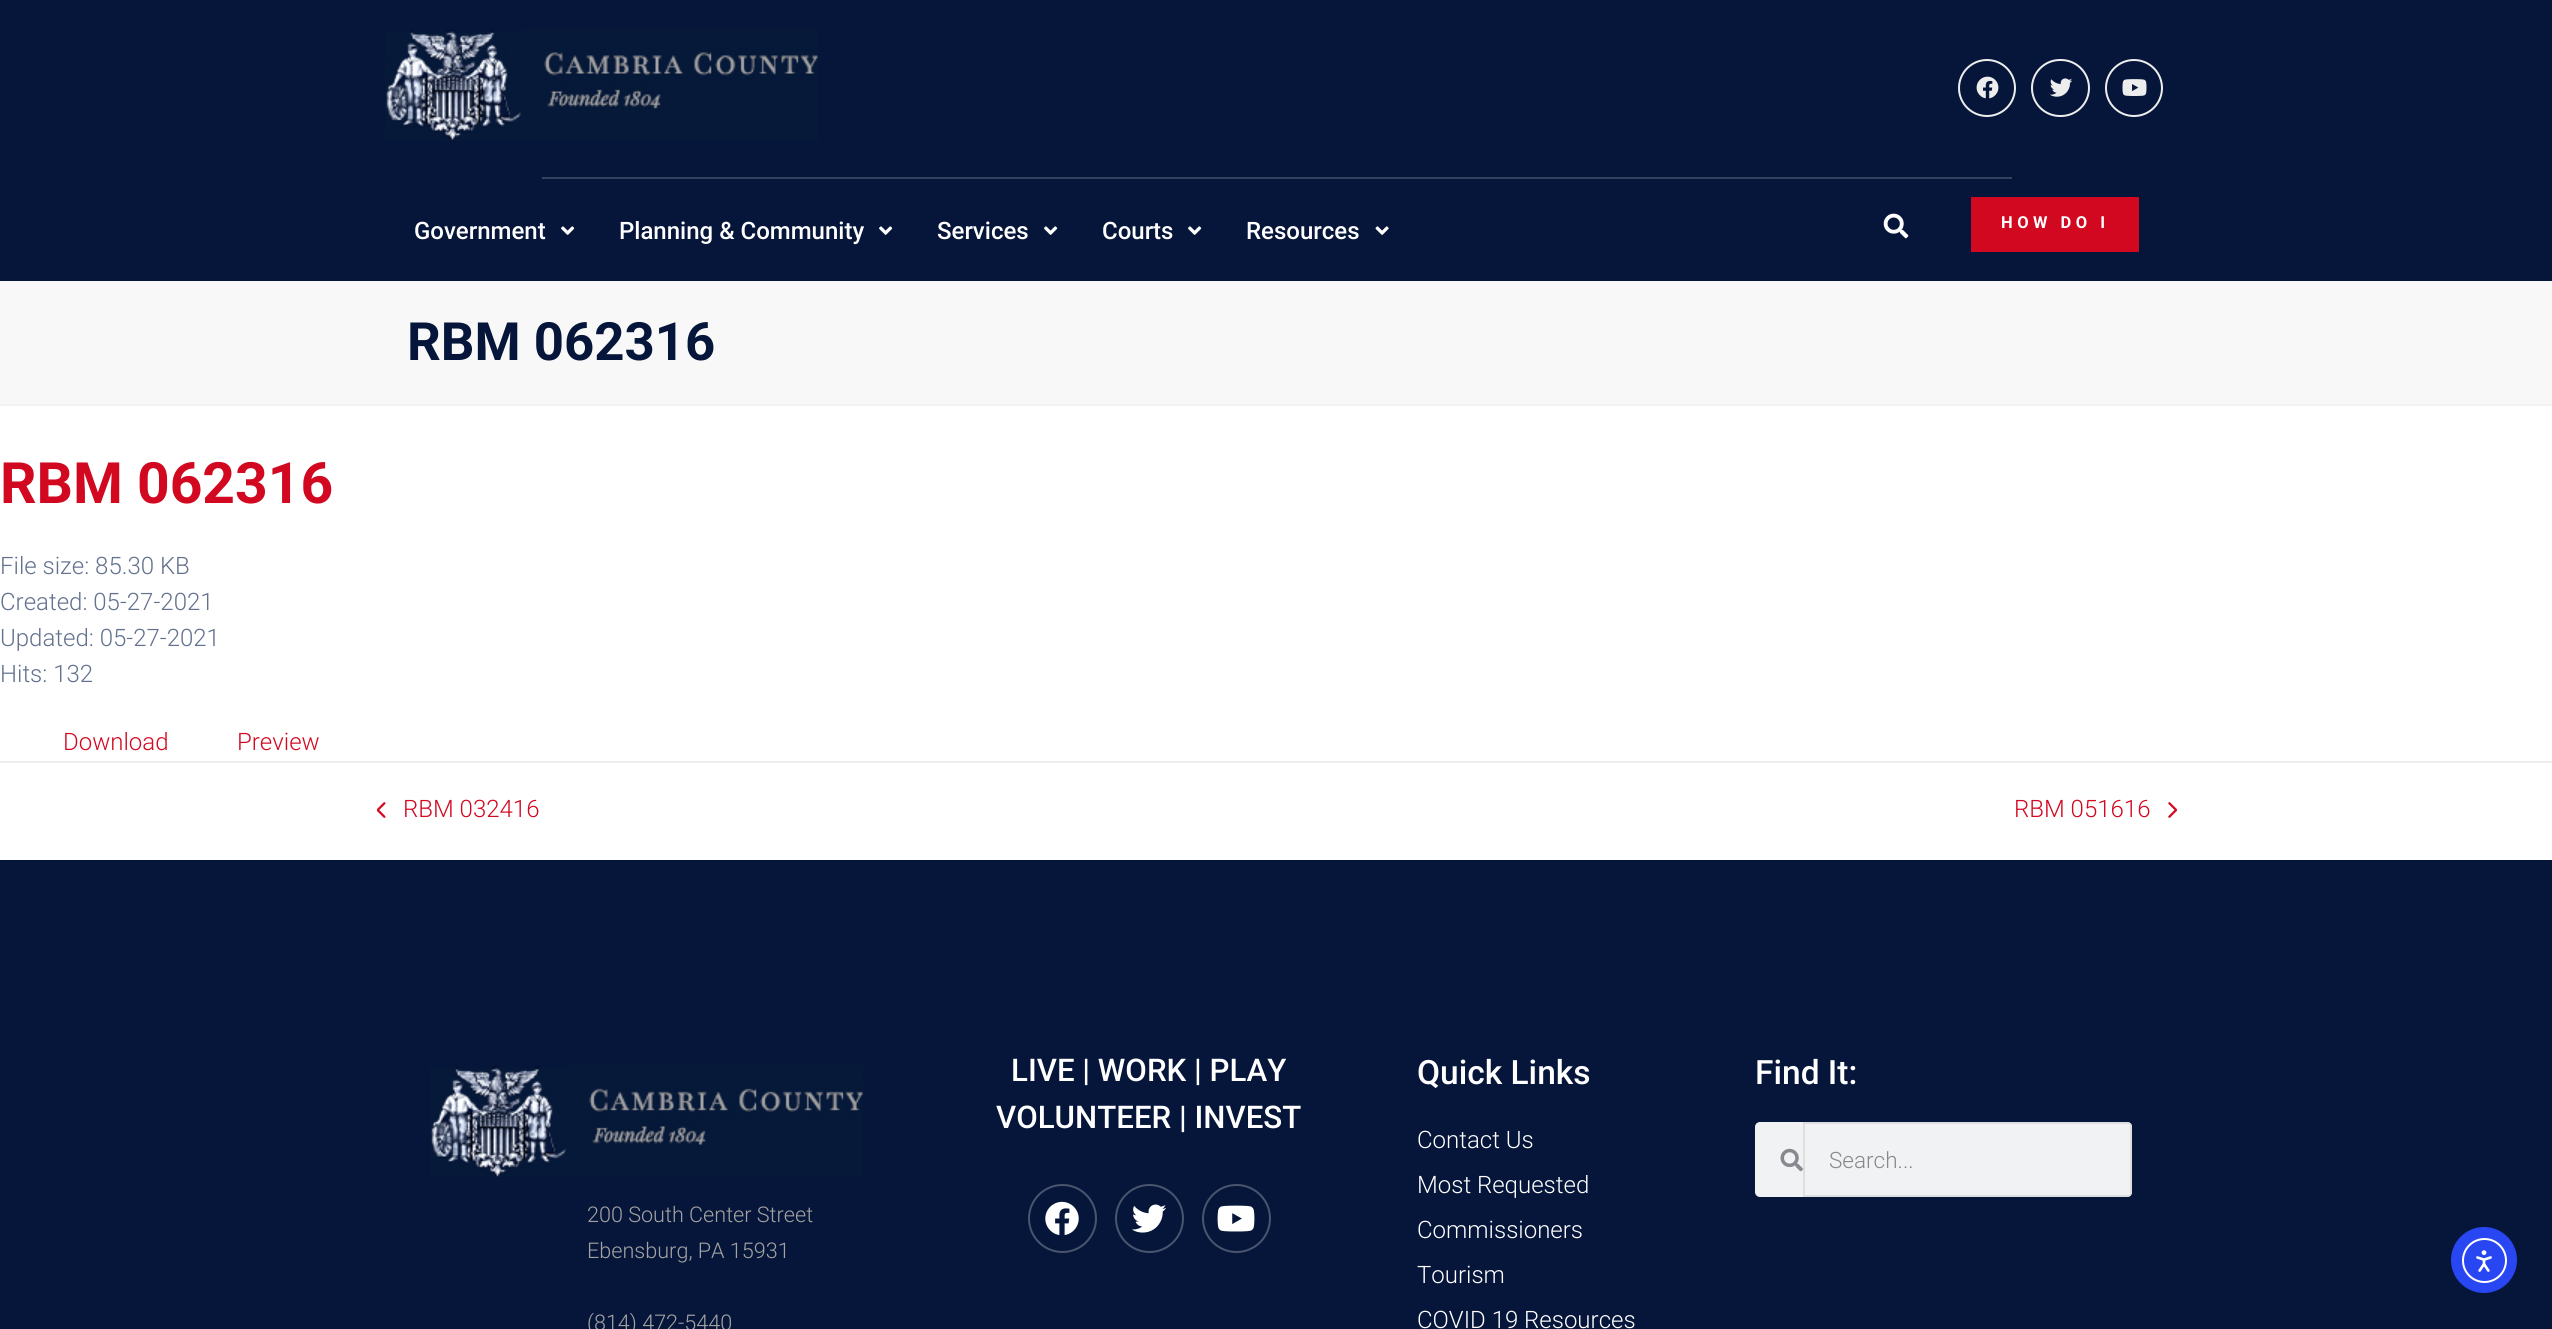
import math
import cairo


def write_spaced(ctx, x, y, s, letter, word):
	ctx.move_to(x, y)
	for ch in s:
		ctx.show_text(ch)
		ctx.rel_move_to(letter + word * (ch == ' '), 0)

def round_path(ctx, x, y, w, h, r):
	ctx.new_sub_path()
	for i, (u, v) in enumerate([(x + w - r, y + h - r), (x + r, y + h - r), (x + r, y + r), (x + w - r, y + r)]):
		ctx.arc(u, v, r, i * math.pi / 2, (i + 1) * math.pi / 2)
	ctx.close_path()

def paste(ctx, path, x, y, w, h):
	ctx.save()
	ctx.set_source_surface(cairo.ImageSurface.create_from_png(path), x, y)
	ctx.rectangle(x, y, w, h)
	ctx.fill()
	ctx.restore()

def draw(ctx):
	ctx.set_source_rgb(1, 1, 1)
	ctx.paint()
	ctx.set_source_rgb(0.024, 0.086, 0.227)
	ctx.rectangle(0, 0, 2552, 281)
	ctx.fill()
	paste(ctx, 'media/1.png', 385, 29, 433, 112)
	ctx.arc(1987, 88, 28, 0, 2 * math.pi)
	ctx.set_source_rgb(0.929, 0.929, 0.929)
	ctx.stroke()
	paste(ctx, 'media/2.png', 1976, 76, 23, 23)
	round_path(ctx, 2032, 60, 57, 56, 28)
	ctx.stroke()
	paste(ctx, 'media/3.png', 2050, 78, 23, 19)
	ctx.arc(2134, 88, 28, 0, 2 * math.pi)
	ctx.stroke()
	paste(ctx, 'media/4.png', 2122, 79, 25, 17)
	ctx.set_source_rgb(0.208, 0.259, 0.373)
	ctx.rectangle(542, 177, 1470, 2)
	ctx.fill()
	ctx.select_font_face('Roboto Medium')
	ctx.set_font_size(24)
	ctx.set_source_rgb(1, 1, 1)
	ctx.move_to(414, 239)
	ctx.show_text('Government')
	paste(ctx, 'media/5.png', 561, 226, 14, 9)
	ctx.move_to(619, 239)
	ctx.show_text('Planning & Community')
	paste(ctx, 'media/5.png', 879, 226, 14, 9)
	ctx.move_to(937, 239)
	ctx.show_text('Services')
	paste(ctx, 'media/5.png', 1044, 226, 14, 9)
	ctx.move_to(1102, 239)
	ctx.show_text('Courts')
	paste(ctx, 'media/5.png', 1188, 226, 14, 9)
	ctx.move_to(1246, 239)
	ctx.show_text('Resources')
	paste(ctx, 'media/6.png', 1375, 226, 14, 9)
	paste(ctx, 'media/7.png', 1883, 213, 26, 26)
	ctx.set_source_rgb(0.824, 0.035, 0.129)
	ctx.rectangle(1971, 197, 168, 55)
	ctx.fill()
	ctx.select_font_face('Roboto', cairo.FONT_SLANT_NORMAL, cairo.FONT_WEIGHT_BOLD)
	ctx.set_font_size(16.5)
	ctx.set_source_rgb(1, 1, 1)
	write_spaced(ctx, 2001, 228, 'HOW DO I', 4.5, 0)
	ctx.set_source_rgb(0.969, 0.969, 0.969)
	ctx.rectangle(0, 281, 2552, 123)
	ctx.fill()
	ctx.set_source_rgb(0.949, 0.949, 0.949)
	ctx.rectangle(0, 404, 2552, 2)
	ctx.fill()
	ctx.set_font_size(52.75)
	ctx.set_source_rgb(0.024, 0.086, 0.227)
	ctx.move_to(407, 360)
	ctx.show_text('RBM 062316')
	ctx.set_font_size(57)
	ctx.set_source_rgb(0.824, 0.035, 0.129)
	ctx.move_to(0, 503)
	ctx.show_text('RBM 062316')
	ctx.select_font_face('Roboto Light')
	ctx.set_font_size(24)
	ctx.set_source_rgb(0.384, 0.443, 0.553)
	for x, y, s in [
		(0, 574, 'File size: 85.30 KB'),
		(0, 610, 'Created: 05-27-2021'),
		(0, 646, 'Updated: 05-27-2021'),
		(0, 682, 'Hits: 132'),
	]:
		ctx.move_to(x, y)
		ctx.show_text(s)
	ctx.set_source_rgb(0.824, 0.035, 0.129)
	ctx.move_to(63, 750)
	ctx.show_text('Download')
	ctx.move_to(237, 750)
	ctx.show_text('Preview')
	ctx.set_source_rgb(0.933, 0.933, 0.933)
	ctx.rectangle(0, 761, 2552, 2)
	ctx.fill()
	paste(ctx, 'media/8.png', 377, 802, 9, 16)
	ctx.set_source_rgb(0.824, 0.035, 0.129)
	ctx.move_to(403, 817)
	ctx.show_text('RBM 032416')
	ctx.move_to(2014, 817)
	ctx.show_text('RBM 051616')
	paste(ctx, 'media/9.png', 2168, 802, 9, 16)
	ctx.set_source_rgb(0.024, 0.086, 0.227)
	ctx.rectangle(0, 860, 2552, 469)
	ctx.fill()
	ctx.select_font_face('Roboto Medium')
	ctx.set_font_size(31.25)
	ctx.set_source_rgb(1, 1, 1)
	ctx.move_to(1011, 1081)
	ctx.show_text('LIVE | WORK | PLAY')
	ctx.move_to(996, 1128)
	ctx.show_text('VOLUNTEER | INVEST')
	ctx.new_path()
	ctx.arc(1062.5, 1218.5, 33.5, 0, 2 * math.pi)
	ctx.set_source_rgb(0.286, 0.333, 0.435)
	ctx.stroke()
	paste(ctx, 'media/10.png', 1045, 1201, 34, 34)
	ctx.arc(1149.5, 1218.5, 33.5, 0, 2 * math.pi)
	ctx.stroke()
	paste(ctx, 'media/11.png', 1132, 1204, 34, 29)
	ctx.arc(1236.5, 1218.5, 33.5, 0, 2 * math.pi)
	ctx.stroke()
	paste(ctx, 'media/12.png', 1217, 1205, 38, 27)
	ctx.set_font_size(33.5)
	ctx.set_source_rgb(1, 1, 1)
	ctx.move_to(1417, 1084)
	ctx.show_text('Quick Links')
	ctx.select_font_face('Roboto Light')
	ctx.set_font_size(24)
	for x, y, s in [
		(1417, 1148, 'Contact Us'),
		(1417, 1193, 'Most Requested'),
		(1417, 1238, 'Commissioners'),
		(1417, 1283, 'Tourism'),
		(1417, 1328, 'COVID 19 Resources'),
	]:
		ctx.move_to(x, y)
		ctx.show_text(s)
	ctx.select_font_face('Roboto Medium')
	ctx.set_font_size(33.5)
	ctx.move_to(1755, 1084)
	ctx.show_text('Find It:')
	ctx.set_source_rgb(0.945, 0.949, 0.953)
	round_path(ctx, 1755, 1122, 377, 75, 5)
	ctx.fill()
	paste(ctx, 'media/13.png', 1780, 1148, 23, 24)
	ctx.set_source_rgb(0.871, 0.871, 0.871)
	ctx.set_fill_rule(cairo.FILL_RULE_EVEN_ODD)
	ctx.new_path()
	ctx.move_to(1803, 1122)
	ctx.line_to(1803, 1197)
	ctx.line_to(2127, 1197)
	ctx.curve_to(2130, 1197, 2132, 1195, 2132, 1192)
	ctx.line_to(2132, 1127)
	ctx.curve_to(2132, 1124, 2130, 1122, 2127, 1122)
	ctx.close_path()
	ctx.move_to(1805, 1124)
	ctx.line_to(1805, 1195)
	ctx.line_to(2130, 1195)
	ctx.line_to(2130, 1124)
	ctx.close_path()
	ctx.fill()
	ctx.select_font_face('Roboto Light')
	ctx.set_font_size(22.5)
	ctx.set_source_rgb(0.525, 0.541, 0.557)
	ctx.move_to(1829, 1168)
	ctx.show_text('Search...')
	paste(ctx, 'media/14.png', 430, 1065, 433, 112)
	ctx.set_font_size(21.6)
	ctx.set_source_rgb(0.639, 0.639, 0.631)
	for x, y, s in [
		(587, 1222, '200 South Center Street'),
		(587, 1258, 'Ebensburg, PA 15931'),
		(587, 1330, '(814) 472-5440'),
	]:
		ctx.move_to(x, y)
		ctx.show_text(s)
	ctx.set_source_rgb(0.157, 0.278, 0.953)
	ctx.new_path()
	ctx.arc(2484, 1260, 33, 0, 2 * math.pi)
	ctx.fill()
	ctx.arc(2484.5, 1260.5, 21.5, 0, 2 * math.pi)
	ctx.set_source_rgb(1, 1, 1)
	ctx.stroke()
	paste(ctx, 'media/15.png', 2476, 1250, 16, 22)


surface = cairo.ImageSurface(cairo.FORMAT_RGB24, 2552, 1329)
ctx = cairo.Context(surface)
options = cairo.FontOptions()
options.set_hint_metrics(cairo.HINT_METRICS_OFF)
options.set_hint_style(cairo.HINT_STYLE_NONE)
ctx.set_font_options(options)
ctx.set_miter_limit(4)
draw(ctx)
surface.write_to_png('image.png')
